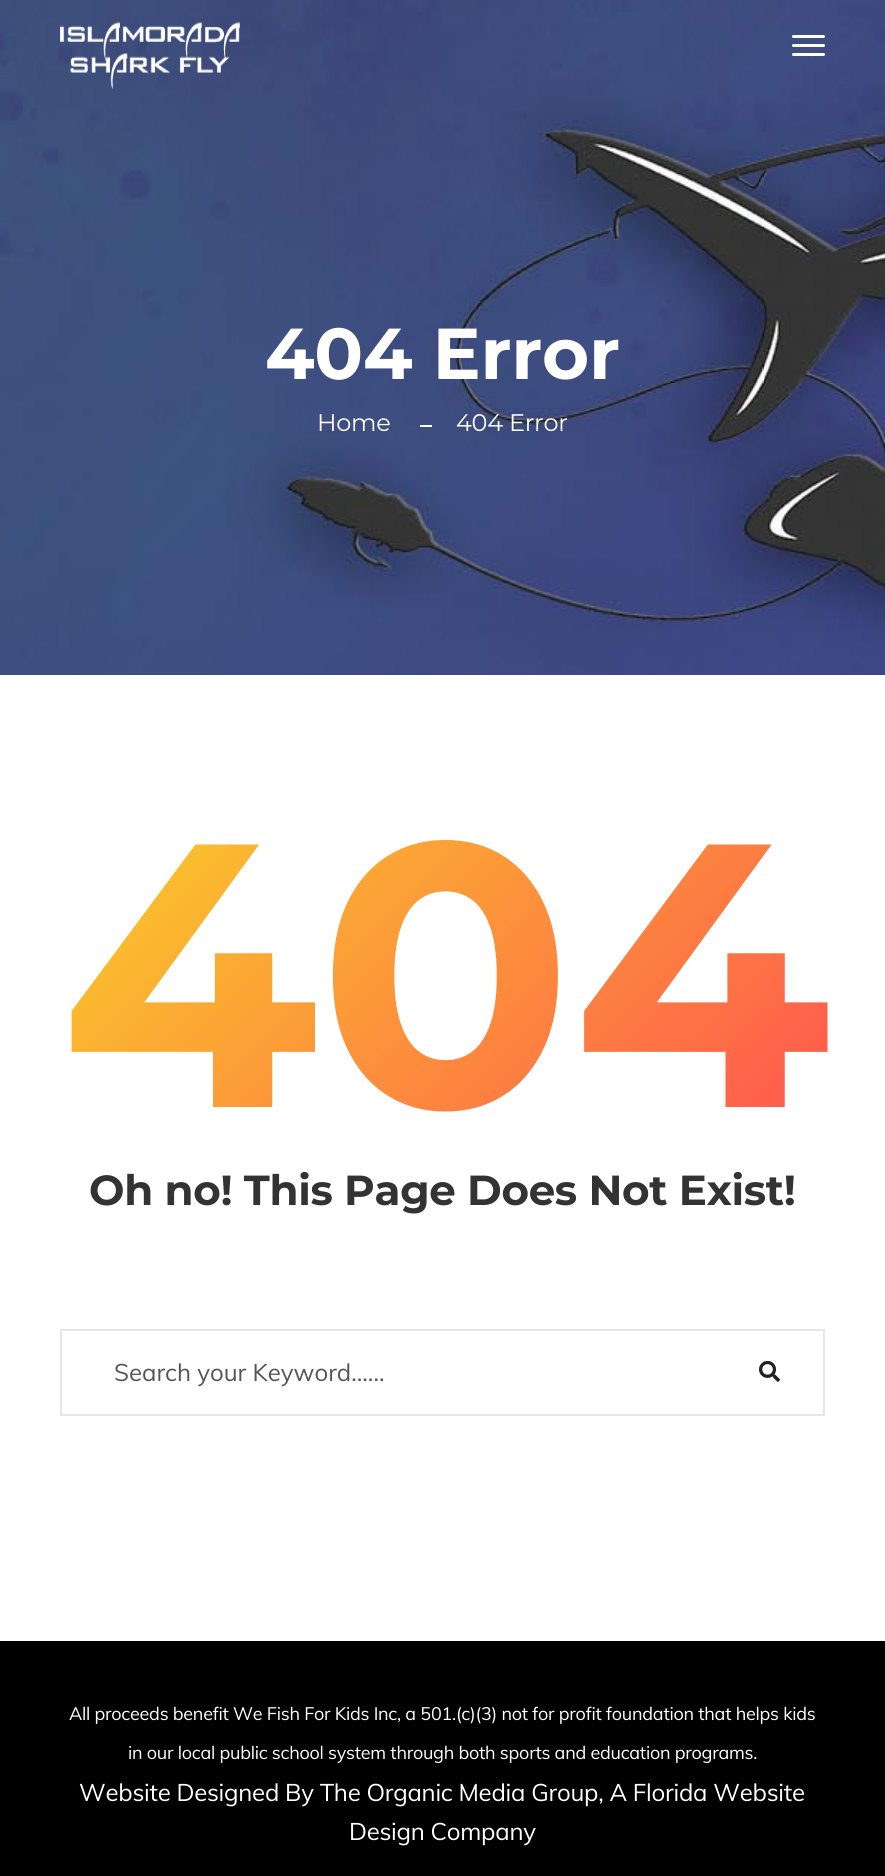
import math
import cairo


def write_spaced(ctx, x, y, s, letter, word):
	ctx.move_to(x, y)
	for ch in s:
		ctx.show_text(ch)
		ctx.rel_move_to(letter + word * (ch == ' '), 0)

def round_path(ctx, x, y, w, h, r):
	ctx.new_sub_path()
	for i, (u, v) in enumerate([(x + w - r, y + h - r), (x + r, y + h - r), (x + r, y + r), (x + w - r, y + r)]):
		ctx.arc(u, v, r, i * math.pi / 2, (i + 1) * math.pi / 2)
	ctx.close_path()

def paste(ctx, path, x, y, w, h):
	ctx.save()
	ctx.set_source_surface(cairo.ImageSurface.create_from_png(path), x, y)
	ctx.rectangle(x, y, w, h)
	ctx.fill()
	ctx.restore()

def draw(ctx):
	ctx.set_source_rgb(1, 1, 1)
	ctx.paint()
	paste(ctx, 'media/2.png', 0, 0, 885, 675)
	paste(ctx, 'media/1.png', 60, 22, 180, 67)
	ctx.set_source_rgb(1, 1, 1)
	round_path(ctx, 792, 35, 33, 3, 1.5)
	ctx.fill()
	round_path(ctx, 792, 44, 33, 3, 1.5)
	ctx.fill()
	round_path(ctx, 792, 53, 33, 3, 1.5)
	ctx.fill()
	ctx.select_font_face('Montserrat', cairo.FONT_SLANT_NORMAL, cairo.FONT_WEIGHT_BOLD)
	ctx.set_font_size(72)
	write_spaced(ctx, 265, 379, '404 Error', -0.25, 0)
	ctx.select_font_face('Montserrat')
	ctx.set_font_size(24)
	write_spaced(ctx, 317, 431, 'Home', -0.25, 0)
	ctx.rectangle(420, 425, 12, 2)
	ctx.fill()
	write_spaced(ctx, 456, 431, '404 Error', -0.25, 0)
	ctx.select_font_face('Montserrat', cairo.FONT_SLANT_NORMAL, cairo.FONT_WEIGHT_BOLD)
	ctx.set_font_size(375)
	gradient = cairo.LinearGradient(161, 692, 724, 1255)
	gradient.add_color_stop_rgba(0, 0.98, 0.82, 0.153, 1)
	gradient.add_color_stop_rgba(1, 1, 0.329, 0.31, 1)
	ctx.set_source(gradient)
	write_spaced(ctx, 60, 1107, '404', -0.25, 0)
	ctx.set_font_size(42)
	ctx.set_source_rgb(0.2, 0.2, 0.2)
	write_spaced(ctx, 89, 1205, 'Oh no! This Page Does Not Exist!', -0.3, 0)
	ctx.rectangle(61, 1330, 763, 85)
	ctx.set_source_rgb(0.902, 0.902, 0.902)
	ctx.stroke()
	ctx.select_font_face('Muli')
	ctx.set_font_size(24)
	ctx.set_source_rgb(0.333, 0.333, 0.333)
	ctx.move_to(114, 1381)
	ctx.show_text('Search your Keyword......')
	paste(ctx, 'media/3.png', 759, 1360, 21, 22)
	ctx.set_source_rgb(0, 0, 0)
	ctx.rectangle(0, 1641, 885, 235)
	ctx.fill()
	ctx.set_font_size(18)
	ctx.set_source_rgb(1, 1, 1)
	write_spaced(ctx, 69, 1720, 'All proceeds benefit We Fish For Kids Inc, a 501.(c)(3) not for profit foundation that helps kids', -0.25, 0)
	write_spaced(ctx, 128, 1759, 'in our local public school system through both sports and education programs.', -0.25, 0)
	ctx.set_font_size(24)
	write_spaced(ctx, 79, 1801, 'Website Designed By The Organic Media Group, A Florida Website', -0.25, 0)
	write_spaced(ctx, 349, 1840, 'Design Company', -0.25, 0)


surface = cairo.ImageSurface(cairo.FORMAT_RGB24, 885, 1876)
ctx = cairo.Context(surface)
options = cairo.FontOptions()
options.set_hint_metrics(cairo.HINT_METRICS_OFF)
options.set_hint_style(cairo.HINT_STYLE_NONE)
ctx.set_font_options(options)
ctx.set_miter_limit(4)
draw(ctx)
surface.write_to_png('image.png')
